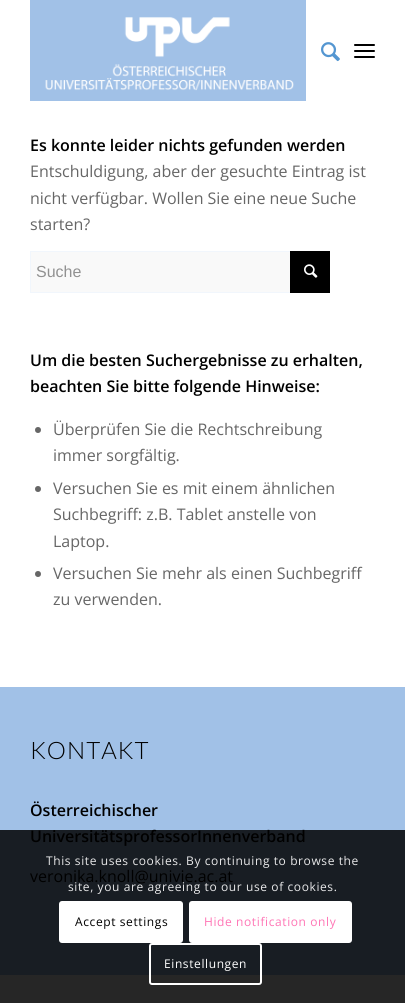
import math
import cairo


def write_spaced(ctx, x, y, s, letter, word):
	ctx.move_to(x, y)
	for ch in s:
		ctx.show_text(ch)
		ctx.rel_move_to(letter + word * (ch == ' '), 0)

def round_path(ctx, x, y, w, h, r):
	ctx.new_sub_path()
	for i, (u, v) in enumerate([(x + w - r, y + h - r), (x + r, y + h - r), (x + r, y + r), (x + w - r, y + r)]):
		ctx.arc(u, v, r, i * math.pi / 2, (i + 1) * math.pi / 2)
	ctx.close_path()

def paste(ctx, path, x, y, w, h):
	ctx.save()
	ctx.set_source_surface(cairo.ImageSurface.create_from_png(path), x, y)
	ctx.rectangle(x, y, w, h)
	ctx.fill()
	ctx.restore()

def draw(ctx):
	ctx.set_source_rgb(1, 1, 1)
	ctx.paint()
	ctx.set_source_rgb(0.149, 0.149, 0.149)
	ctx.rectangle(0, 975, 405, 28)
	ctx.fill()
	paste(ctx, 'media/1.png', 30, 0, 276, 101)
	paste(ctx, 'media/2.png', 321, 42, 19, 20)
	ctx.set_source_rgb(0, 0, 0)
	round_path(ctx, 354, 50, 21, 2, 1)
	ctx.fill()
	round_path(ctx, 354, 44, 21, 2, 1)
	ctx.fill()
	round_path(ctx, 354, 56, 21, 2, 1)
	ctx.fill()
	ctx.select_font_face('Open Sans SemiBold')
	ctx.set_font_size(16)
	ctx.move_to(30, 151)
	ctx.show_text('Es konnte leider nichts gefunden werden')
	ctx.select_font_face('Open Sans')
	ctx.set_source_rgb(0.4, 0.4, 0.4)
	for x, y, s in [
		(30, 177, 'Entschuldigung, aber der gesuchte Eintrag ist'),
		(30, 204, 'nicht verfügbar. Wollen Sie eine neue Suche'),
		(30, 230, 'starten?'),
	]:
		ctx.move_to(x, y)
		ctx.show_text(s)
	ctx.set_source_rgb(0.973, 0.973, 0.973)
	ctx.rectangle(31, 252, 259, 40)
	ctx.fill()
	ctx.rectangle(30.5, 251.5, 299, 41)
	ctx.set_source_rgb(0.945, 0.961, 0.988)
	ctx.set_line_width(1)
	ctx.stroke()
	ctx.select_font_face('Liberation Sans')
	ctx.set_source_rgb(0.569, 0.569, 0.569)
	ctx.move_to(36, 277)
	ctx.show_text('Suche')
	ctx.set_source_rgb(0, 0, 0)
	ctx.rectangle(290, 251, 40, 42)
	ctx.fill()
	paste(ctx, 'media/3.png', 304, 264, 14, 14)
	ctx.select_font_face('Open Sans SemiBold')
	ctx.move_to(30, 366)
	ctx.show_text('Um die besten Suchergebnisse zu erhalten,')
	ctx.move_to(30, 392)
	ctx.show_text('beachten Sie bitte folgende Hinweise:')
	ctx.set_source_rgb(0.4, 0.4, 0.4)
	ctx.new_path()
	ctx.arc(38, 430, 3, 0, 2 * math.pi)
	ctx.fill()
	ctx.select_font_face('Open Sans')
	ctx.move_to(53, 435)
	ctx.show_text('Überprüfen Sie die Rechtschreibung')
	ctx.move_to(53, 461)
	ctx.show_text('immer sorgfältig.')
	ctx.new_path()
	ctx.arc(38, 489, 3, 0, 2 * math.pi)
	ctx.fill()
	for x, y, s in [
		(53, 494, 'Versuchen Sie es mit einem ähnlichen'),
		(53, 520, 'Suchbegriff: z.B. Tablet anstelle von'),
		(53, 547, 'Laptop.'),
	]:
		ctx.move_to(x, y)
		ctx.show_text(s)
	ctx.new_path()
	ctx.arc(38, 574, 3, 0, 2 * math.pi)
	ctx.fill()
	ctx.move_to(53, 579)
	ctx.show_text('Versuchen Sie mehr als einen Suchbegriff')
	ctx.move_to(53, 605)
	ctx.show_text('zu verwenden.')
	ctx.set_source_rgb(0.631, 0.757, 0.906)
	ctx.rectangle(0, 687, 405, 143)
	ctx.fill()
	ctx.set_source_rgb(0.094, 0.114, 0.137)
	ctx.rectangle(0, 830, 405, 145)
	ctx.fill()
	ctx.select_font_face('Lato Light')
	ctx.set_font_size(24)
	ctx.set_source_rgb(0, 0, 0)
	write_spaced(ctx, 30, 759, 'KONTAKT', 1, 0)
	ctx.select_font_face('Open Sans SemiBold')
	ctx.set_font_size(16)
	ctx.move_to(30, 816)
	ctx.show_text('Österreichischer')
	ctx.move_to(30, 842)
	ctx.show_text('UniversitätsprofessorInnenverband')
	ctx.select_font_face('Open Sans')
	ctx.move_to(30, 882)
	ctx.show_text('veronika.knoll@univie.ac.at')
	ctx.set_font_size(12)
	ctx.set_source_rgb(0.91, 0.91, 0.914)
	write_spaced(ctx, 46, 865, 'This site uses cookies. By continuing to browse the', 0.6, 0)
	write_spaced(ctx, 68, 891, 'site, you are agreeing to our use of cookies.', 0.6, 0)
	ctx.set_source_rgb(1, 1, 1)
	round_path(ctx, 59, 901, 124, 42, 3)
	ctx.fill()
	ctx.set_source_rgb(0, 0, 0)
	write_spaced(ctx, 75, 926, 'Accept settings', 0.6, 0)
	ctx.set_source_rgb(1, 1, 1)
	round_path(ctx, 190, 902, 161, 40, 2)
	ctx.fill_preserve()
	ctx.set_line_width(2)
	ctx.stroke()
	ctx.set_source_rgb(1, 0.459, 0.71)
	write_spaced(ctx, 204, 926, 'Hide notification only', 0.6, 0)
	round_path(ctx, 150, 944, 111, 40, 2)
	ctx.set_source_rgb(1, 1, 1)
	ctx.stroke()
	write_spaced(ctx, 164, 968, 'Einstellungen', 0.6, 0)


surface = cairo.ImageSurface(cairo.FORMAT_RGB24, 405, 1003)
ctx = cairo.Context(surface)
options = cairo.FontOptions()
options.set_hint_metrics(cairo.HINT_METRICS_OFF)
options.set_hint_style(cairo.HINT_STYLE_NONE)
ctx.set_font_options(options)
ctx.set_miter_limit(4)
draw(ctx)
surface.write_to_png('image.png')
